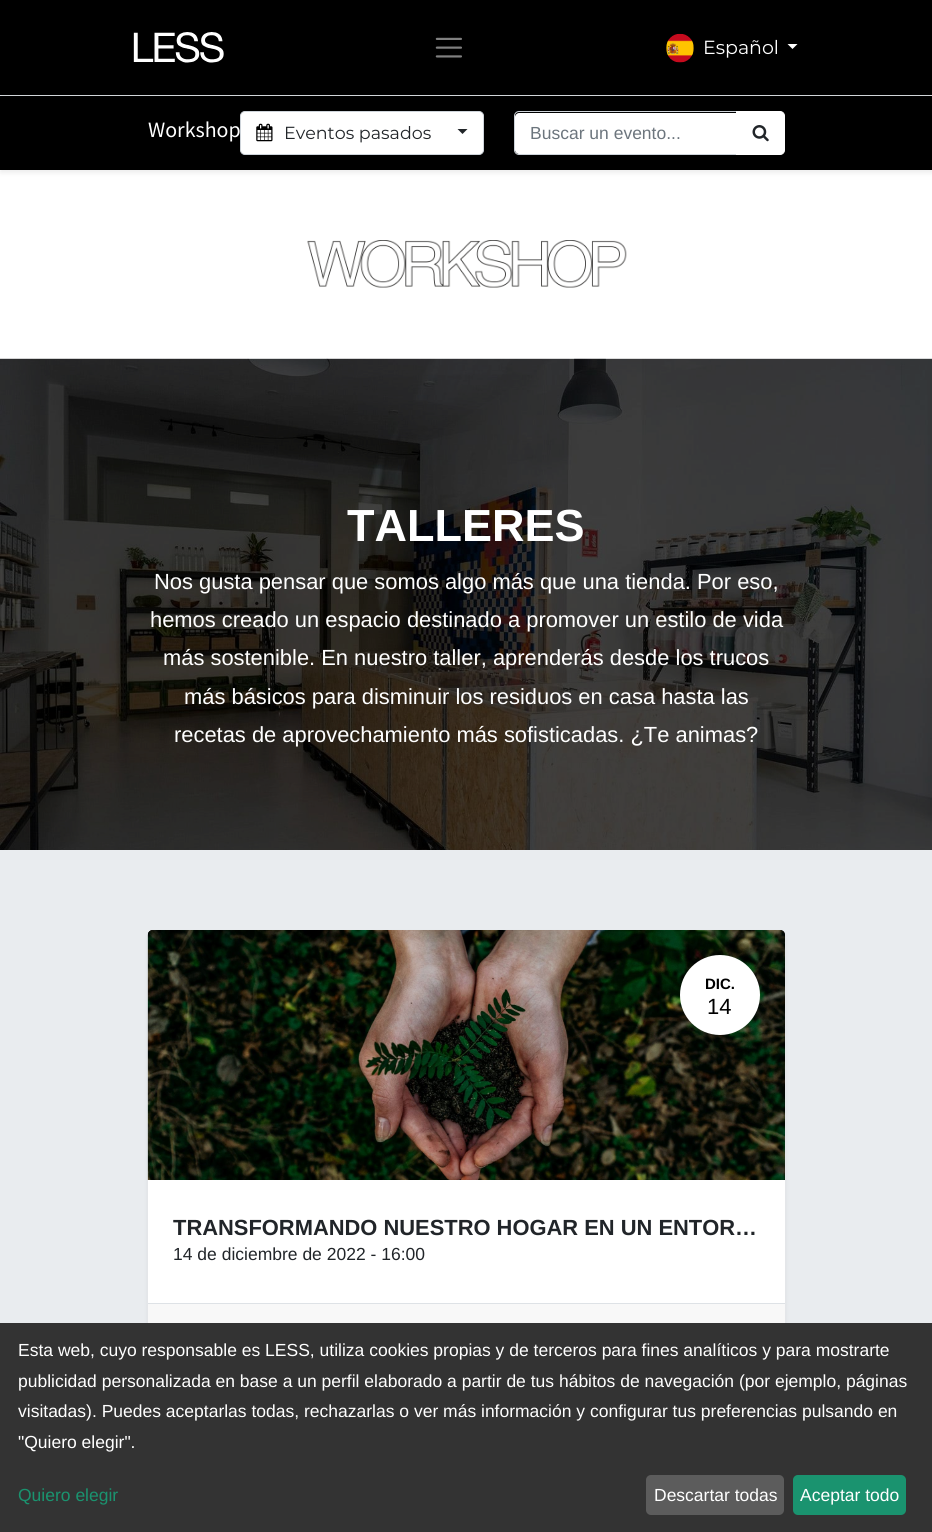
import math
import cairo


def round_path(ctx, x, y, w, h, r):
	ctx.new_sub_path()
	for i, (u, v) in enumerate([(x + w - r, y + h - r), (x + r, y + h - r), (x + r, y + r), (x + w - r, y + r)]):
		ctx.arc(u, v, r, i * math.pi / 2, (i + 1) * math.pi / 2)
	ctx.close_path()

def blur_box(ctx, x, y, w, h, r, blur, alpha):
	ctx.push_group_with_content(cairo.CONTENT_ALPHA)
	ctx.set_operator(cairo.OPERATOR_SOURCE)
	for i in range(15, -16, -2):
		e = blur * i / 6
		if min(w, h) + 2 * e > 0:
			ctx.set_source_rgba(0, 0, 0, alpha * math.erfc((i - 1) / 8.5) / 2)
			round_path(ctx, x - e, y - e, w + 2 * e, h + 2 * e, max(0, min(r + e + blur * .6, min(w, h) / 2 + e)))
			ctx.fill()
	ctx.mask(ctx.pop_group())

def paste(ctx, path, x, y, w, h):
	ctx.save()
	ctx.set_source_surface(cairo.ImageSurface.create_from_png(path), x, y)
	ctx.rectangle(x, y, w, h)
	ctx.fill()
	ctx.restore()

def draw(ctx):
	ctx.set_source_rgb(1, 1, 1)
	ctx.paint()
	ctx.set_source_rgb(0, 0, 0)
	blur_box(ctx, 0, 98, 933, 75, 0, 2.5, 0.07)
	ctx.set_source_rgb(0, 0, 0)
	ctx.rectangle(0, 96, 932, 74)
	ctx.fill()
	ctx.set_source_rgb(0.871, 0.886, 0.902)
	ctx.rectangle(0, 95, 932, 1)
	ctx.fill()
	ctx.set_source_rgb(0, 0, 0)
	blur_box(ctx, 0, 3, 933, 95, 0, 2.5, 0.07)
	ctx.set_source_rgb(0, 0, 0)
	ctx.rectangle(0, 0, 932, 95)
	ctx.fill()
	paste(ctx, 'media/1.png', 133, 32, 91, 31)
	paste(ctx, 'media/2.png', 435, 37, 27, 21)
	paste(ctx, 'media/3.png', 666, 33, 28, 30)
	ctx.select_font_face('Montserrat')
	ctx.set_font_size(19)
	ctx.set_source_rgb(1, 1, 1)
	ctx.move_to(703, 54)
	ctx.show_text('Español')
	ctx.new_path()
	ctx.move_to(787.5, 44)
	ctx.line_to(797.5, 44)
	ctx.line_to(792.5, 49)
	ctx.close_path()
	ctx.fill()
	ctx.select_font_face('Source Sans Pro')
	ctx.set_font_size(21.9)
	ctx.move_to(148, 137)
	ctx.show_text('Workshop')
	round_path(ctx, 240.5, 111.5, 243, 43, 4.5)
	ctx.fill_preserve()
	ctx.set_source_rgb(0.808, 0.831, 0.855)
	ctx.set_line_width(1)
	ctx.stroke()
	paste(ctx, 'media/4.png', 256, 123, 17, 19)
	ctx.select_font_face('Montserrat')
	ctx.set_font_size(17.5)
	ctx.set_source_rgb(0.129, 0.145, 0.161)
	ctx.move_to(284, 139)
	ctx.show_text('Eventos pasados')
	ctx.new_path()
	ctx.move_to(457.5, 129)
	ctx.line_to(467.5, 129)
	ctx.line_to(462.5, 134)
	ctx.close_path()
	ctx.fill()
	ctx.set_source_rgb(1, 1, 1)
	ctx.new_path()
	ctx.move_to(519, 113)
	ctx.line_to(736, 113)
	ctx.line_to(736, 154)
	ctx.line_to(519, 154)
	ctx.curve_to(517, 154, 515, 152, 515, 150)
	ctx.line_to(515, 117)
	ctx.curve_to(515, 115, 517, 113, 519, 113)
	ctx.close_path()
	ctx.fill()
	ctx.new_path()
	ctx.move_to(519, 111.5)
	ctx.line_to(737.5, 111.5)
	ctx.line_to(737.5, 154.5)
	ctx.line_to(519, 154.5)
	ctx.curve_to(516.5, 154.5, 514.5, 152.5, 514.5, 150)
	ctx.line_to(514.5, 116)
	ctx.curve_to(514.5, 113.5, 516.5, 111.5, 519, 111.5)
	ctx.close_path()
	ctx.set_source_rgb(0.808, 0.831, 0.855)
	ctx.stroke()
	ctx.select_font_face('Liberation Sans')
	ctx.set_source_rgb(0.424, 0.459, 0.49)
	ctx.move_to(530, 139)
	ctx.show_text('Buscar un evento...')
	ctx.set_source_rgb(1, 1, 1)
	ctx.new_path()
	ctx.move_to(736.5, 111.5)
	ctx.line_to(780, 111.5)
	ctx.curve_to(782.5, 111.5, 784.5, 113.5, 784.5, 116)
	ctx.line_to(784.5, 150)
	ctx.curve_to(784.5, 152.5, 782.5, 154.5, 780, 154.5)
	ctx.line_to(736.5, 154.5)
	ctx.close_path()
	ctx.fill_preserve()
	ctx.stroke()
	paste(ctx, 'media/5.png', 752, 125, 17, 17)
	paste(ctx, 'media/6.png', 307, 240, 320, 48)
	paste(ctx, 'media/7.png', 0, 358, 932, 492)
	ctx.select_font_face('Liberation Sans', cairo.FONT_SLANT_NORMAL, cairo.FONT_WEIGHT_BOLD)
	ctx.set_font_size(45)
	ctx.move_to(347, 541)
	ctx.show_text('TALLERES')
	ctx.select_font_face('Liberation Sans')
	ctx.set_font_size(21.9)
	for x, y, s in [
		(154, 589, 'Nos gusta pensar que somos algo más que una tienda. Por eso,'),
		(150, 627, 'hemos creado un espacio destinado a promover un estilo de vida'),
		(163, 665, 'más sostenible. En nuestro taller, aprenderás desde los trucos'),
		(184, 704, 'más básicos para disminuir los residuos en casa hasta las'),
		(174, 742, 'recetas de aprovechamiento más sofisticadas. ¿Te animas?'),
	]:
		ctx.move_to(x, y)
		ctx.show_text(s)
	ctx.set_source_rgb(0.914, 0.925, 0.937)
	ctx.rectangle(0, 850, 932, 473)
	ctx.fill()
	ctx.set_source_rgb(0, 0, 0)
	blur_box(ctx, 148, 933, 637, 425, 5, 2.5, 0.07)
	ctx.set_source_rgb(1, 1, 1)
	round_path(ctx, 148, 930, 637, 425, 5)
	ctx.fill()
	ctx.set_source_rgb(0, 0, 0)
	ctx.new_path()
	ctx.move_to(153, 930)
	ctx.line_to(780, 930)
	ctx.curve_to(783, 930, 785, 932, 785, 935)
	ctx.line_to(785, 1180)
	ctx.line_to(148, 1180)
	ctx.line_to(148, 935)
	ctx.curve_to(148, 932, 150, 930, 153, 930)
	ctx.close_path()
	ctx.fill()
	paste(ctx, 'media/8.png', 147, 930, 638, 250)
	ctx.set_source_rgb(1, 1, 1)
	ctx.arc(720, 995, 40, 0, 2 * math.pi)
	ctx.fill()
	ctx.select_font_face('Liberation Sans', cairo.FONT_SLANT_NORMAL, cairo.FONT_WEIGHT_BOLD)
	ctx.set_font_size(15)
	ctx.set_source_rgb(0, 0, 0)
	ctx.move_to(705, 989)
	ctx.show_text('DIC.')
	ctx.select_font_face('Liberation Sans')
	ctx.set_font_size(22)
	ctx.move_to(707, 1014)
	ctx.show_text('14')
	ctx.save()
	ctx.rectangle(173, 1215, 587, 26)
	ctx.clip()
	ctx.select_font_face('Liberation Sans', cairo.FONT_SLANT_NORMAL, cairo.FONT_WEIGHT_BOLD)
	ctx.set_font_size(21.9)
	ctx.set_source_rgb(0.129, 0.145, 0.161)
	ctx.move_to(173, 1235)
	ctx.show_text('TRANSFORMANDO NUESTRO HOGAR EN UN ENTOR…')
	ctx.restore()
	ctx.set_font_size(17.5)
	ctx.set_source_rgb(0.129, 0.145, 0.161)
	ctx.move_to(173, 1260)
	ctx.show_text('14 de diciembre de 2022 - 16:00')
	ctx.set_source_rgba(0, 0, 0, 0.03)
	ctx.rectangle(148, 1304, 637, 19)
	ctx.fill()
	ctx.set_source_rgb(0.871, 0.886, 0.902)
	ctx.rectangle(148, 1303, 637, 1)
	ctx.fill()
	ctx.set_source_rgb(0.2, 0.2, 0.2)
	ctx.rectangle(0, 1323, 932, 209)
	ctx.fill()
	ctx.set_source_rgb(1, 1, 1)
	for x, y, s in [
		(18, 1356, 'Esta web, cuyo responsable es LESS, utiliza cookies propias y de terceros para fines analíticos y para mostrarte'),
		(18, 1387, 'publicidad personalizada en base a un perfil elaborado a partir de tus hábitos de navegación (por ejemplo, páginas'),
		(18, 1417, 'visitadas). Puedes aceptarlas todas, rechazarlas o ver más información y configurar tus preferencias pulsando en'),
		(18, 1448, '"Quiero elegir".'),
	]:
		ctx.move_to(x, y)
		ctx.show_text(s)
	ctx.set_source_rgb(0.102, 0.576, 0.435)
	ctx.move_to(18, 1501)
	ctx.show_text('Quiero elegir')
	ctx.set_source_rgb(0.361, 0.361, 0.361)
	round_path(ctx, 646, 1475, 138, 40, 5)
	ctx.fill()
	ctx.set_source_rgb(1, 1, 1)
	ctx.move_to(654, 1501)
	ctx.show_text('Descartar todas')
	ctx.set_source_rgb(0.102, 0.576, 0.435)
	round_path(ctx, 793, 1475, 113, 40, 5)
	ctx.fill()
	ctx.set_source_rgb(1, 1, 1)
	ctx.move_to(800, 1501)
	ctx.show_text('Aceptar todo')


surface = cairo.ImageSurface(cairo.FORMAT_RGB24, 932, 1532)
ctx = cairo.Context(surface)
options = cairo.FontOptions()
options.set_hint_metrics(cairo.HINT_METRICS_OFF)
options.set_hint_style(cairo.HINT_STYLE_NONE)
ctx.set_font_options(options)
ctx.set_miter_limit(4)
draw(ctx)
surface.write_to_png('image.png')
